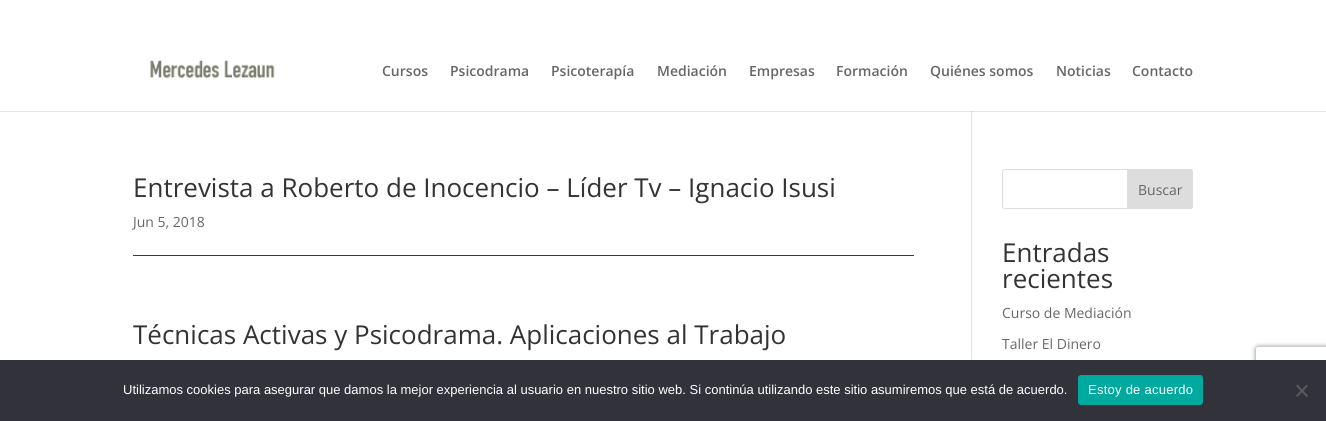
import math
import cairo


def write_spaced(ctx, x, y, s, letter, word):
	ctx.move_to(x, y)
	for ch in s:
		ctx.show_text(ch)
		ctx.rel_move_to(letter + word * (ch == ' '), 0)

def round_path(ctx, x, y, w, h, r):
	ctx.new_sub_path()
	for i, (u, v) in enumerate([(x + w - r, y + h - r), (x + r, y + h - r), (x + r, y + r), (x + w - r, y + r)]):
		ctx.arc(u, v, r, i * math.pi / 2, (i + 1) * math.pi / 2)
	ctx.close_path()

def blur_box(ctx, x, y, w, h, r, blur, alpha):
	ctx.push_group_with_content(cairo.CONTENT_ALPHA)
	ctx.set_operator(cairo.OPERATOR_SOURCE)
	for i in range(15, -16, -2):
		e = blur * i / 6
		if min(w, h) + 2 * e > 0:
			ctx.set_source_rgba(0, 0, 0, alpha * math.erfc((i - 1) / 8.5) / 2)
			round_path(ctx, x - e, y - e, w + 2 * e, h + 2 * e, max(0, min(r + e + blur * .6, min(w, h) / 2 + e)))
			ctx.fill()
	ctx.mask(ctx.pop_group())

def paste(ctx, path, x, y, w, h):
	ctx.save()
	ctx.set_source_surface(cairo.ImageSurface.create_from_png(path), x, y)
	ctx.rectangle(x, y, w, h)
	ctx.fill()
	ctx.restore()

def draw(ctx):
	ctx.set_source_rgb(1, 1, 1)
	ctx.paint()
	ctx.set_source_rgb(0.902, 0.902, 0.902)
	ctx.rectangle(0, 111, 1326, 1)
	ctx.fill()
	paste(ctx, 'media/1.png', 150, 60, 125, 19)
	ctx.select_font_face('Open Sans SemiBold')
	ctx.set_font_size(14)
	ctx.set_source_rgb(0.4, 0.4, 0.4)
	for x, y, s in [
		(382, 76, 'Cursos'),
		(450, 76, 'Psicodrama'),
		(551, 76, 'Psicoterapía'),
		(657, 76, 'Mediación'),
		(749, 76, 'Empresas'),
		(836, 76, 'Formación'),
		(930, 76, 'Quiénes somos'),
		(1056, 76, 'Noticias'),
		(1132, 76, 'Contacto'),
	]:
		ctx.move_to(x, y)
		ctx.show_text(s)
	ctx.set_source_rgb(0.886, 0.886, 0.886)
	ctx.rectangle(971, 111, 1, 249)
	ctx.fill()
	ctx.set_source_rgb(0.796, 0.796, 0.796)
	ctx.rectangle(971, 111, 1, 1)
	ctx.fill()
	ctx.set_source_rgb(0.224, 0.224, 0.224)
	ctx.rectangle(133, 255, 781, 1)
	ctx.fill()
	ctx.select_font_face('Open Sans')
	ctx.set_font_size(26)
	ctx.set_source_rgb(0.2, 0.2, 0.2)
	ctx.move_to(133, 197)
	ctx.show_text('Entrevista a Roberto de Inocencio – Líder Tv – Ignacio Isusi')
	ctx.set_font_size(14)
	ctx.set_source_rgb(0.4, 0.4, 0.4)
	ctx.move_to(133, 227)
	ctx.show_text('Jun 5, 2018')
	ctx.set_font_size(26)
	ctx.set_source_rgb(0.2, 0.2, 0.2)
	ctx.move_to(133, 344)
	ctx.show_text('Técnicas Activas y Psicodrama. Aplicaciones al Trabajo')
	round_path(ctx, 1002.5, 169.5, 190, 39, 2.5)
	ctx.set_source_rgb(0.867, 0.867, 0.867)
	ctx.set_line_width(1)
	ctx.stroke()
	ctx.new_path()
	ctx.move_to(1127.5, 169.5)
	ctx.line_to(1190, 169.5)
	ctx.curve_to(1191.5, 169.5, 1192.5, 170.5, 1192.5, 172)
	ctx.line_to(1192.5, 206)
	ctx.curve_to(1192.5, 207.5, 1191.5, 208.5, 1190, 208.5)
	ctx.line_to(1127.5, 208.5)
	ctx.close_path()
	ctx.fill_preserve()
	ctx.stroke()
	ctx.set_font_size(14)
	ctx.set_source_rgb(0.4, 0.4, 0.4)
	ctx.move_to(1138, 195)
	ctx.show_text('Buscar')
	ctx.set_font_size(26)
	ctx.set_source_rgb(0.2, 0.2, 0.2)
	ctx.move_to(1002, 262)
	ctx.show_text('Entradas')
	ctx.move_to(1002, 288)
	ctx.show_text('recientes')
	ctx.set_font_size(14)
	ctx.set_source_rgb(0.4, 0.4, 0.4)
	ctx.move_to(1002, 318)
	ctx.show_text('Curso de Mediación')
	ctx.move_to(1002, 349)
	ctx.show_text('Taller El Dinero')
	ctx.save()
	ctx.set_fill_rule(cairo.FILL_RULE_EVEN_ODD)
	ctx.new_path()
	ctx.move_to(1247, 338)
	ctx.line_to(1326, 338)
	ctx.line_to(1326, 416)
	ctx.line_to(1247, 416)
	ctx.close_path()
	ctx.move_to(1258, 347)
	ctx.line_to(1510, 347)
	ctx.curve_to(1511, 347, 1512, 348, 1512, 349)
	ctx.line_to(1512, 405)
	ctx.curve_to(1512, 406, 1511, 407, 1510, 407)
	ctx.line_to(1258, 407)
	ctx.curve_to(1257, 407, 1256, 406, 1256, 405)
	ctx.line_to(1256, 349)
	ctx.curve_to(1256, 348, 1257, 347, 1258, 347)
	ctx.close_path()
	ctx.clip()
	ctx.set_source_rgb(0.502, 0.502, 0.502)
	blur_box(ctx, 1256, 347, 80, 60, 2, 2.5, 1)
	ctx.restore()
	ctx.set_source_rgb(0.196, 0.196, 0.227)
	ctx.rectangle(0, 360, 1326, 61)
	ctx.fill()
	ctx.select_font_face('Liberation Sans')
	ctx.set_font_size(13)
	ctx.set_source_rgb(1, 1, 1)
	ctx.move_to(123, 394)
	ctx.show_text('Utilizamos cookies para asegurar que damos la mejor experiencia al usuario en nuestro sitio web. Si continúa utilizando este sitio asumiremos que está de acuerdo.')
	ctx.set_source_rgb(0, 0.663, 0.616)
	round_path(ctx, 1078, 375, 125, 30, 3)
	ctx.fill()
	ctx.set_source_rgb(1, 1, 1)
	write_spaced(ctx, 1088, 394, 'Estoy de acuerdo', 0.25, 0)
	ctx.set_source_rgb(0.349, 0.349, 0.365)
	ctx.new_path()
	ctx.move_to(1306.5, 384.5)
	ctx.line_to(1308, 386)
	ctx.line_to(1297.5, 397)
	ctx.line_to(1296, 395.5)
	ctx.close_path()
	ctx.fill()
	ctx.new_path()
	ctx.move_to(1296, 386)
	ctx.line_to(1297.5, 384.5)
	ctx.line_to(1308, 395.5)
	ctx.line_to(1306.5, 397)
	ctx.close_path()
	ctx.fill()


surface = cairo.ImageSurface(cairo.FORMAT_RGB24, 1326, 421)
ctx = cairo.Context(surface)
options = cairo.FontOptions()
options.set_hint_metrics(cairo.HINT_METRICS_OFF)
options.set_hint_style(cairo.HINT_STYLE_NONE)
ctx.set_font_options(options)
ctx.set_miter_limit(4)
draw(ctx)
surface.write_to_png('image.png')
